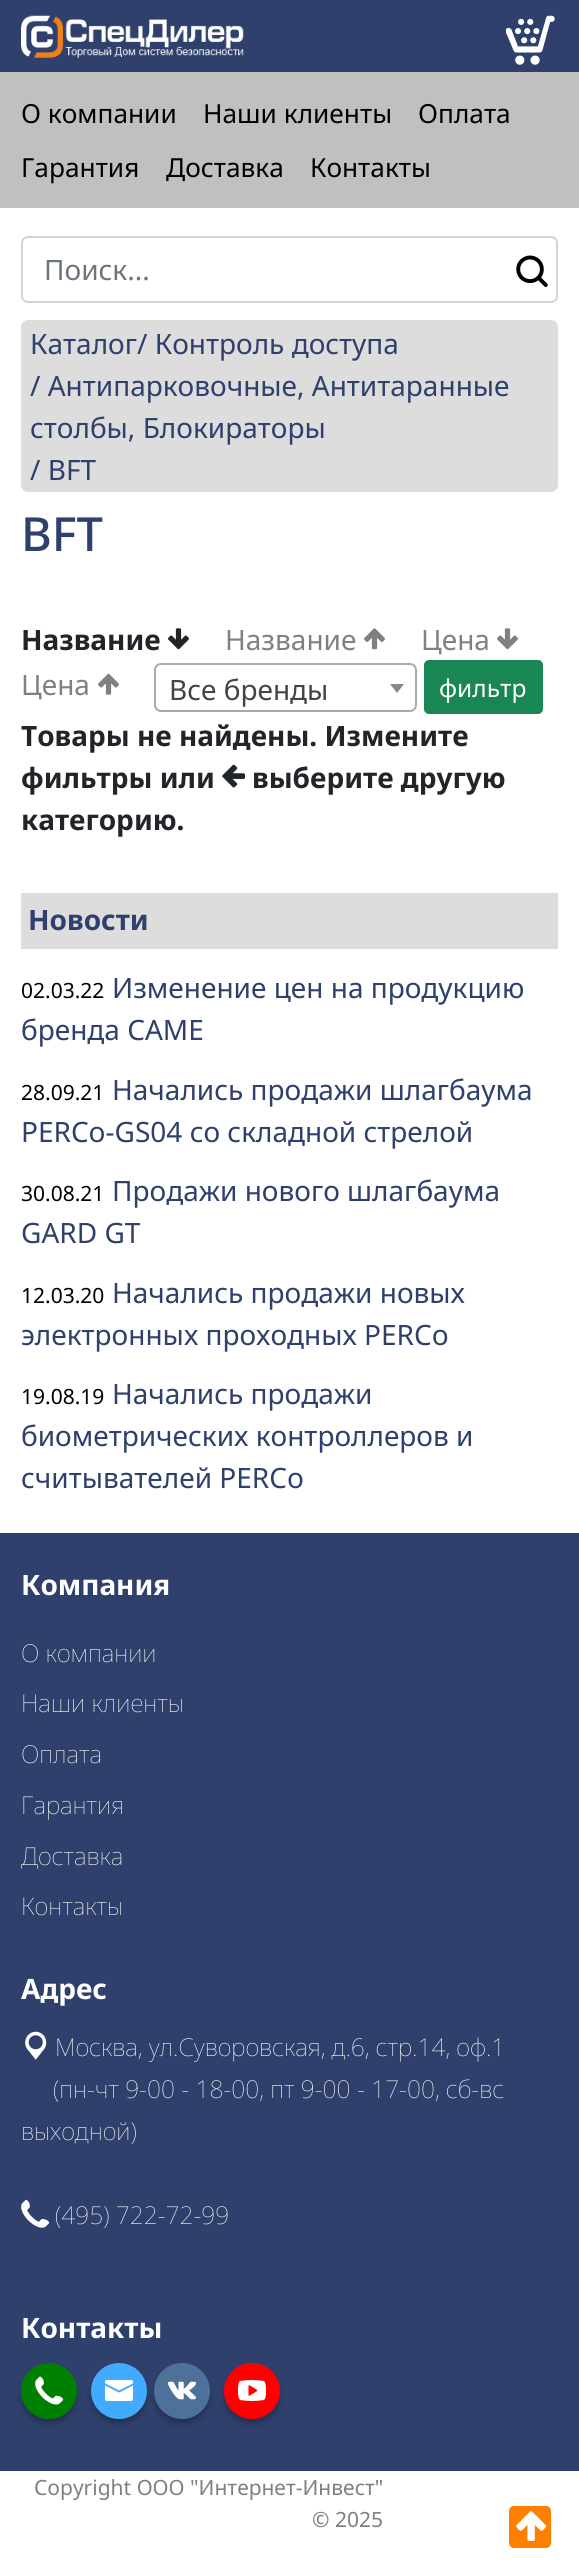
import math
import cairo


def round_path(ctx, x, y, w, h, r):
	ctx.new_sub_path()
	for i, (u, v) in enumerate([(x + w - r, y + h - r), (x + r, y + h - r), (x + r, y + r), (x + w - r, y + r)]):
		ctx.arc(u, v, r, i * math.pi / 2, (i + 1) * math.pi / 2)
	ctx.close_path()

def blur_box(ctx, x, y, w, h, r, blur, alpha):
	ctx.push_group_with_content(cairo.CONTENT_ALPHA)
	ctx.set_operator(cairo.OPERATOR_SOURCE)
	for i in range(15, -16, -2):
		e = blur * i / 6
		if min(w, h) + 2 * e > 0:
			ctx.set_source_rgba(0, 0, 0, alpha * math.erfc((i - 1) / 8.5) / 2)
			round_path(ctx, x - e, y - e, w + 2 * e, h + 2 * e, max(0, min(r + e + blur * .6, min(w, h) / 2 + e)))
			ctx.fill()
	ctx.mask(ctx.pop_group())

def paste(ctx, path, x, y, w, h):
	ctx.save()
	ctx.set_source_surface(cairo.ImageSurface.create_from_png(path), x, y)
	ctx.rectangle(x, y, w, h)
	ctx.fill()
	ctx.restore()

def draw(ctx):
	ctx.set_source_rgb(1, 1, 1)
	ctx.paint()
	ctx.set_source_rgb(0.18, 0.251, 0.42)
	ctx.rectangle(0, 0, 579, 72)
	ctx.fill()
	paste(ctx, 'media/1.png', 21, 15, 223, 43)
	paste(ctx, 'media/2.png', 506, 15, 49, 50)
	ctx.set_source_rgb(0.753, 0.753, 0.753)
	ctx.rectangle(0, 72, 579, 136)
	ctx.fill()
	ctx.select_font_face('Noto Sans')
	ctx.set_font_size(26.25)
	ctx.set_source_rgb(0, 0, 0)
	for x, y, s in [
		(21, 123, 'О компании'),
		(203, 123, 'Наши клиенты'),
		(418, 123, 'Оплата'),
		(21, 177, 'Гарантия'),
		(166, 177, 'Доставка'),
		(310, 177, 'Контакты'),
	]:
		ctx.move_to(x, y)
		ctx.show_text(s)
	round_path(ctx, 22, 237, 535, 65, 6)
	ctx.set_source_rgb(0.808, 0.831, 0.855)
	ctx.stroke()
	ctx.set_font_size(28)
	ctx.set_source_rgb(0.424, 0.459, 0.49)
	ctx.move_to(44, 280)
	ctx.show_text('Поиск...')
	paste(ctx, 'media/3.png', 516, 255, 32, 32)
	ctx.set_source_rgb(0.867, 0.867, 0.867)
	round_path(ctx, 21, 320, 537, 172, 7)
	ctx.fill()
	ctx.set_source_rgb(0.18, 0.251, 0.42)
	for x, y, s in [
		(30, 354, 'Каталог/ Контроль доступа'),
		(30, 396, '/ Антипарковочные, Антитаранные'),
		(30, 438, 'столбы, Блокираторы'),
		(30, 480, '/ BFT'),
	]:
		ctx.move_to(x, y)
		ctx.show_text(s)
	ctx.select_font_face('Noto Sans Medium')
	ctx.set_font_size(47)
	ctx.move_to(21, 551)
	ctx.show_text('BFT')
	ctx.select_font_face('Noto Sans', cairo.FONT_SLANT_NORMAL, cairo.FONT_WEIGHT_BOLD)
	ctx.set_font_size(28)
	ctx.set_source_rgb(0.129, 0.145, 0.161)
	ctx.move_to(21, 650)
	ctx.show_text('Название')
	paste(ctx, 'media/4.png', 168, 628, 21, 22)
	ctx.select_font_face('Noto Sans')
	ctx.set_source_rgb(0.502, 0.502, 0.502)
	ctx.move_to(225, 650)
	ctx.show_text('Название')
	paste(ctx, 'media/5.png', 364, 628, 21, 22)
	ctx.move_to(421, 650)
	ctx.show_text('Цена')
	paste(ctx, 'media/6.png', 497, 628, 21, 22)
	ctx.move_to(21, 695)
	ctx.show_text('Цена')
	paste(ctx, 'media/7.png', 98, 673, 21, 22)
	round_path(ctx, 155, 664, 261, 47, 6)
	ctx.set_source_rgb(0.667, 0.667, 0.667)
	ctx.stroke()
	ctx.set_source_rgb(0.267, 0.267, 0.267)
	ctx.move_to(169, 700)
	ctx.show_text('Все бренды')
	ctx.set_source_rgb(0.533, 0.533, 0.533)
	ctx.new_path()
	ctx.move_to(390, 684)
	ctx.line_to(404, 684)
	ctx.line_to(397, 693)
	ctx.close_path()
	ctx.fill()
	ctx.set_source_rgb(0.098, 0.529, 0.329)
	round_path(ctx, 425, 661, 117, 52, 4)
	ctx.fill_preserve()
	ctx.stroke()
	ctx.set_font_size(24.5)
	ctx.set_source_rgb(1, 1, 1)
	ctx.move_to(439, 697)
	ctx.show_text('фильтр')
	ctx.select_font_face('Noto Sans', cairo.FONT_SLANT_NORMAL, cairo.FONT_WEIGHT_BOLD)
	ctx.set_font_size(28)
	ctx.set_source_rgb(0.129, 0.145, 0.161)
	ctx.move_to(21, 746)
	ctx.show_text('Товары не найдены. Измените')
	ctx.move_to(21, 788)
	ctx.show_text('фильтры или')
	paste(ctx, 'media/8.png', 222, 764, 23, 24)
	ctx.move_to(252, 788)
	ctx.show_text('выберите другую')
	ctx.move_to(21, 830)
	ctx.show_text('категорию.')
	ctx.set_source_rgb(0.867, 0.867, 0.867)
	ctx.rectangle(21, 893, 537, 56)
	ctx.fill()
	ctx.set_source_rgb(0.18, 0.251, 0.42)
	ctx.move_to(28, 930)
	ctx.show_text('Новости')
	ctx.select_font_face('Noto Sans')
	ctx.set_font_size(21)
	ctx.set_source_rgb(0, 0, 0)
	ctx.move_to(21, 998)
	ctx.show_text('02.03.22')
	ctx.set_font_size(28)
	ctx.set_source_rgb(0.18, 0.251, 0.42)
	ctx.move_to(112, 998)
	ctx.show_text('Изменение цен на продукцию')
	ctx.move_to(21, 1040)
	ctx.show_text('бренда CAME')
	ctx.set_font_size(21)
	ctx.set_source_rgb(0, 0, 0)
	ctx.move_to(21, 1100)
	ctx.show_text('28.09.21')
	ctx.set_font_size(28)
	ctx.set_source_rgb(0.18, 0.251, 0.42)
	ctx.move_to(112, 1100)
	ctx.show_text('Начались продажи шлагбаума')
	ctx.move_to(21, 1142)
	ctx.show_text('PERCo-GS04 со складной стрелой')
	ctx.set_font_size(21)
	ctx.set_source_rgb(0, 0, 0)
	ctx.move_to(21, 1201)
	ctx.show_text('30.08.21')
	ctx.set_font_size(28)
	ctx.set_source_rgb(0.18, 0.251, 0.42)
	ctx.move_to(112, 1201)
	ctx.show_text('Продажи нового шлагбаума')
	ctx.move_to(21, 1243)
	ctx.show_text('GARD GT')
	ctx.set_font_size(21)
	ctx.set_source_rgb(0, 0, 0)
	ctx.move_to(21, 1303)
	ctx.show_text('12.03.20')
	ctx.set_font_size(28)
	ctx.set_source_rgb(0.18, 0.251, 0.42)
	ctx.move_to(112, 1303)
	ctx.show_text('Начались продажи новых')
	ctx.move_to(21, 1345)
	ctx.show_text('электронных проходных PERCo')
	ctx.set_font_size(21)
	ctx.set_source_rgb(0, 0, 0)
	ctx.move_to(21, 1404)
	ctx.show_text('19.08.19')
	ctx.set_font_size(28)
	ctx.set_source_rgb(0.18, 0.251, 0.42)
	for x, y, s in [
		(112, 1404, 'Начались продажи'),
		(21, 1446, 'биометрических контроллеров и'),
		(21, 1488, 'считывателей PERCo'),
	]:
		ctx.move_to(x, y)
		ctx.show_text(s)
	ctx.rectangle(0, 1533, 579, 938)
	ctx.fill()
	ctx.select_font_face('Noto Sans', cairo.FONT_SLANT_NORMAL, cairo.FONT_WEIGHT_BOLD)
	ctx.set_source_rgb(1, 1, 1)
	ctx.move_to(21, 1595)
	ctx.show_text('Компания')
	ctx.select_font_face('Noto Sans Thin')
	ctx.set_font_size(24.5)
	for x, y, s in [
		(21, 1662, 'О компании'),
		(21, 1712, 'Наши клиенты'),
		(21, 1763, 'Оплата'),
		(21, 1814, 'Гарантия'),
		(21, 1865, 'Доставка'),
		(21, 1915, 'Контакты'),
	]:
		ctx.move_to(x, y)
		ctx.show_text(s)
	ctx.select_font_face('Noto Sans', cairo.FONT_SLANT_NORMAL, cairo.FONT_WEIGHT_BOLD)
	ctx.set_font_size(28)
	ctx.move_to(21, 1999)
	ctx.show_text('Адрес')
	paste(ctx, 'media/9.png', 25, 2031, 22, 29)
	ctx.select_font_face('Noto Sans Thin')
	ctx.set_font_size(24.5)
	for x, y, s in [
		(55, 2056, 'Москва, ул.Суворовская, д.6, стр.14, оф.1'),
		(53, 2098, '(пн-чт 9-00 - 18-00, пт 9-00 - 17-00, сб-вс'),
		(21, 2140, 'выходной)'),
	]:
		ctx.move_to(x, y)
		ctx.show_text(s)
	paste(ctx, 'media/10.png', 21, 2199, 29, 29)
	ctx.move_to(55, 2224)
	ctx.show_text('(495) 722-72-99')
	ctx.select_font_face('Noto Sans', cairo.FONT_SLANT_NORMAL, cairo.FONT_WEIGHT_BOLD)
	ctx.set_font_size(28)
	ctx.move_to(21, 2338)
	ctx.show_text('Контакты')
	ctx.set_source_rgb(0, 0, 0)
	blur_box(ctx, 21, 2368, 56, 56, 28, 2.5, 0.22)
	ctx.set_source_rgb(0, 0.502, 0)
	ctx.arc(49, 2391, 28, 0, 2 * math.pi)
	ctx.fill()
	paste(ctx, 'media/11.png', 35, 2376, 29, 29)
	ctx.set_source_rgb(0, 0, 0)
	blur_box(ctx, 91, 2368, 56, 56, 28, 2.5, 0.22)
	ctx.set_source_rgb(0.259, 0.667, 1)
	ctx.arc(119, 2391, 28, 0, 2 * math.pi)
	ctx.fill()
	paste(ctx, 'media/12.png', 105, 2380, 28, 21)
	ctx.set_source_rgb(0, 0, 0)
	blur_box(ctx, 154, 2368, 56, 56, 28, 2.5, 0.22)
	ctx.set_source_rgb(0.302, 0.443, 0.596)
	ctx.arc(182, 2391, 28, 0, 2 * math.pi)
	ctx.fill()
	paste(ctx, 'media/13.png', 168, 2381, 28, 19)
	ctx.set_source_rgb(0, 0, 0)
	blur_box(ctx, 224, 2368, 56, 56, 28, 2.5, 0.22)
	ctx.set_source_rgb(1, 0, 0)
	ctx.arc(252, 2391, 28, 0, 2 * math.pi)
	ctx.fill()
	paste(ctx, 'media/14.png', 238, 2380, 28, 21)
	ctx.select_font_face('Noto Sans')
	ctx.set_font_size(21)
	ctx.set_source_rgb(0.502, 0.502, 0.502)
	ctx.move_to(34, 2495)
	ctx.show_text('Copyright ООО "Интернет-Инвест"')
	ctx.move_to(312, 2527)
	ctx.show_text('© 2025')
	ctx.set_source_rgb(1, 0.502, 0)
	round_path(ctx, 509, 2506, 42, 42, 5)
	ctx.fill()
	paste(ctx, 'media/15.png', 516, 2511, 30, 30)


surface = cairo.ImageSurface(cairo.FORMAT_RGB24, 579, 2564)
ctx = cairo.Context(surface)
options = cairo.FontOptions()
options.set_hint_metrics(cairo.HINT_METRICS_OFF)
options.set_hint_style(cairo.HINT_STYLE_NONE)
ctx.set_font_options(options)
ctx.set_miter_limit(4)
draw(ctx)
surface.write_to_png('image.png')
